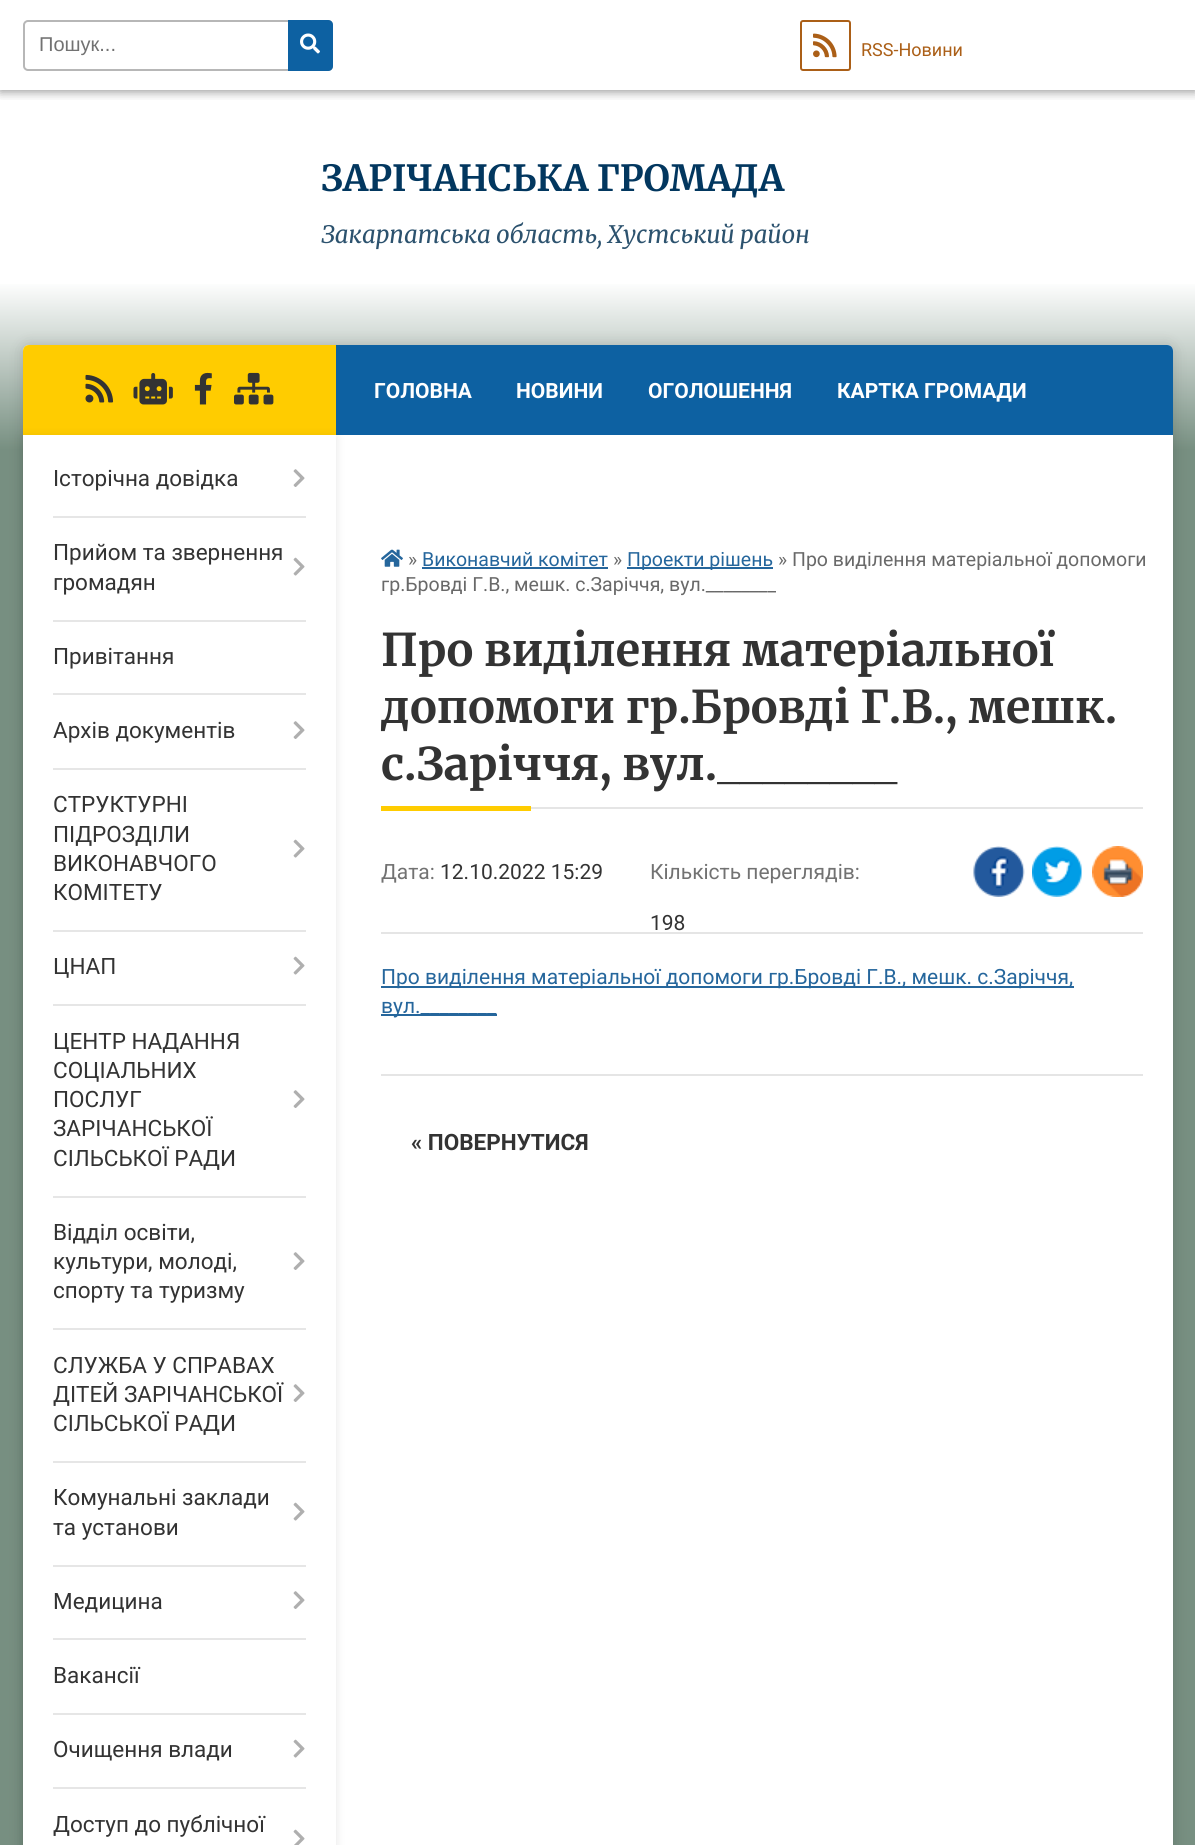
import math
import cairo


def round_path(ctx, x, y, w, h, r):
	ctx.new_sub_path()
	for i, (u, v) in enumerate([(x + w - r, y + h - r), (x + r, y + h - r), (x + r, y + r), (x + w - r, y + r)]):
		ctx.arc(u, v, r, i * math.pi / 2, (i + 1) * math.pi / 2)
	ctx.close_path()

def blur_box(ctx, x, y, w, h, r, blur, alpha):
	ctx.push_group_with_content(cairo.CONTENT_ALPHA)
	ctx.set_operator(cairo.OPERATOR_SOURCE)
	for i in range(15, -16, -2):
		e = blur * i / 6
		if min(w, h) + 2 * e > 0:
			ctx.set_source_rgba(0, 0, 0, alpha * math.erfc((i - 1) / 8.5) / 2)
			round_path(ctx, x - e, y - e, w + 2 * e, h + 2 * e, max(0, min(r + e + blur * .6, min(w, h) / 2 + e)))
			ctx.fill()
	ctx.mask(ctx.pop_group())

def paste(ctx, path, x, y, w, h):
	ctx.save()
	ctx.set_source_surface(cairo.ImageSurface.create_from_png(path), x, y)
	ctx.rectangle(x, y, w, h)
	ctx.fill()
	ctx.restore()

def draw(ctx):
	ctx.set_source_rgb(1, 1, 1)
	ctx.paint()
	gradient = cairo.LinearGradient(598, 0, 598, 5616)
	gradient.add_color_stop_rgba(0.05, 1, 1, 1, 1)
	gradient.add_color_stop_rgba(0.08, 0.467, 0.561, 0.506, 1)
	ctx.set_source(gradient)
	ctx.rectangle(0, 284, 1195, 1561)
	ctx.fill()
	ctx.save()
	ctx.rectangle(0, 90, 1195, 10)
	ctx.clip()
	ctx.set_source_rgb(0, 0, 0)
	blur_box(ctx, 0, 2, 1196, 90, 0, 5, 0.4)
	ctx.restore()
	round_path(ctx, 24, 21, 308, 49, 4)
	ctx.set_source_rgb(0.718, 0.718, 0.718)
	ctx.stroke()
	ctx.select_font_face('Liberation Sans')
	ctx.set_font_size(20)
	ctx.set_source_rgb(0.447, 0.447, 0.447)
	ctx.move_to(39, 51)
	ctx.show_text('Пошук...')
	ctx.set_source_rgb(0.051, 0.38, 0.635)
	ctx.new_path()
	ctx.move_to(288, 20)
	ctx.line_to(328, 20)
	ctx.curve_to(331, 20, 333, 22, 333, 25)
	ctx.line_to(333, 66)
	ctx.curve_to(333, 69, 331, 71, 328, 71)
	ctx.line_to(288, 71)
	ctx.close_path()
	ctx.fill()
	paste(ctx, 'media/1.png', 300, 33, 20, 21)
	round_path(ctx, 801, 21, 49, 49, 2)
	ctx.set_source_rgb(0.671, 0.373, 0.09)
	ctx.stroke()
	paste(ctx, 'media/2.png', 813, 33, 24, 25)
	ctx.select_font_face('Roboto')
	ctx.set_font_size(18)
	ctx.move_to(861, 56)
	ctx.show_text('RSS-Новини')
	ctx.select_font_face('Merriweather Light')
	ctx.set_font_size(36)
	ctx.set_source_rgb(0.008, 0.216, 0.373)
	ctx.move_to(321, 191)
	ctx.show_text('ЗАРІЧАНСЬКА ГРОМАДА')
	ctx.select_font_face('Merriweather Light', cairo.FONT_SLANT_ITALIC)
	ctx.set_font_size(24)
	ctx.set_source_rgb(0.173, 0.322, 0.431)
	ctx.move_to(321, 243)
	ctx.show_text('Закарпатська область, Хустський район')
	ctx.set_source_rgb(0, 0, 0)
	blur_box(ctx, 23, 345, 1150, 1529, 6, 7.5, 0.15)
	ctx.set_source_rgb(1, 1, 1)
	round_path(ctx, 23, 345, 1150, 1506, 6)
	ctx.fill()
	ctx.set_source_rgb(1, 0.8, 0)
	ctx.new_path()
	ctx.move_to(29, 345)
	ctx.line_to(336, 345)
	ctx.line_to(336, 435)
	ctx.line_to(23, 435)
	ctx.line_to(23, 351)
	ctx.curve_to(23, 347.5, 25.5, 345, 29, 345)
	ctx.close_path()
	ctx.fill()
	paste(ctx, 'media/3.png', 85, 374, 29, 29)
	paste(ctx, 'media/4.png', 133, 373, 40, 32)
	paste(ctx, 'media/5.png', 194, 372, 18, 33)
	paste(ctx, 'media/6.png', 234, 372, 40, 33)
	ctx.set_source_rgb(0.051, 0.38, 0.635)
	ctx.new_path()
	ctx.move_to(336, 345)
	ctx.line_to(1167, 345)
	ctx.curve_to(1170.5, 345, 1173, 347.5, 1173, 351)
	ctx.line_to(1173, 435)
	ctx.line_to(336, 435)
	ctx.close_path()
	ctx.fill()
	ctx.save()
	ctx.set_fill_rule(cairo.FILL_RULE_EVEN_ODD)
	ctx.new_path()
	ctx.move_to(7, 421)
	ctx.line_to(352, 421)
	ctx.line_to(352, 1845)
	ctx.line_to(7, 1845)
	ctx.close_path()
	ctx.move_to(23, 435)
	ctx.line_to(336, 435)
	ctx.line_to(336, 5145)
	ctx.line_to(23, 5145)
	ctx.close_path()
	ctx.clip()
	ctx.set_source_rgb(0, 0, 0)
	blur_box(ctx, 23, 437, 313, 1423, 0, 5, 0.1)
	ctx.restore()
	ctx.select_font_face('Roboto')
	ctx.set_font_size(22.5)
	ctx.set_source_rgb(0.2, 0.2, 0.2)
	ctx.move_to(53, 486)
	ctx.show_text('Історічна довідка')
	ctx.set_source_rgb(0.902, 0.902, 0.902)
	ctx.rectangle(53, 516, 253, 2)
	ctx.fill()
	paste(ctx, 'media/7.png', 293, 469, 12, 18)
	ctx.set_source_rgb(0.2, 0.2, 0.2)
	ctx.move_to(53, 560)
	ctx.show_text('Прийом та звернення')
	ctx.move_to(53, 590)
	ctx.show_text('громадян')
	ctx.set_source_rgb(0.902, 0.902, 0.902)
	ctx.rectangle(53, 620, 253, 2)
	ctx.fill()
	paste(ctx, 'media/8.png', 293, 557, 12, 19)
	ctx.set_source_rgb(0.2, 0.2, 0.2)
	ctx.move_to(53, 664)
	ctx.show_text('Привітання')
	ctx.set_source_rgb(0.902, 0.902, 0.902)
	ctx.rectangle(53, 693, 253, 2)
	ctx.fill()
	ctx.set_source_rgb(0.2, 0.2, 0.2)
	ctx.move_to(53, 738)
	ctx.show_text('Архів документів')
	ctx.set_source_rgb(0.902, 0.902, 0.902)
	ctx.rectangle(53, 768, 253, 2)
	ctx.fill()
	paste(ctx, 'media/7.png', 293, 721, 12, 18)
	ctx.set_source_rgb(0.2, 0.2, 0.2)
	for x, y, s in [
		(53, 812, 'СТРУКТУРНІ'),
		(53, 842, 'ПІДРОЗДІЛИ'),
		(53, 871, 'ВИКОНАВЧОГО'),
		(53, 900, 'КОМІТЕТУ'),
	]:
		ctx.move_to(x, y)
		ctx.show_text(s)
	ctx.set_source_rgb(0.902, 0.902, 0.902)
	ctx.rectangle(53, 930, 253, 2)
	ctx.fill()
	paste(ctx, 'media/8.png', 293, 839, 12, 19)
	ctx.set_source_rgb(0.2, 0.2, 0.2)
	ctx.move_to(53, 974)
	ctx.show_text('ЦНАП')
	ctx.set_source_rgb(0.902, 0.902, 0.902)
	ctx.rectangle(53, 1004, 253, 2)
	ctx.fill()
	paste(ctx, 'media/8.png', 293, 956, 12, 19)
	ctx.set_source_rgb(0.2, 0.2, 0.2)
	for x, y, s in [
		(53, 1049, 'ЦЕНТР НАДАННЯ'),
		(53, 1078, 'СОЦІАЛЬНИХ'),
		(53, 1107, 'ПОСЛУГ'),
		(53, 1136, 'ЗАРІЧАНСЬКОЇ'),
		(53, 1166, 'СІЛЬСЬКОЇ РАДИ'),
	]:
		ctx.move_to(x, y)
		ctx.show_text(s)
	ctx.set_source_rgb(0.902, 0.902, 0.902)
	ctx.rectangle(53, 1196, 253, 2)
	ctx.fill()
	paste(ctx, 'media/7.png', 293, 1090, 12, 18)
	ctx.set_source_rgb(0.2, 0.2, 0.2)
	for x, y, s in [
		(53, 1240, 'Відділ освіти,'),
		(53, 1269, 'культури, молоді,'),
		(53, 1298, 'спорту та туризму'),
	]:
		ctx.move_to(x, y)
		ctx.show_text(s)
	ctx.set_source_rgb(0.902, 0.902, 0.902)
	ctx.rectangle(53, 1328, 253, 2)
	ctx.fill()
	paste(ctx, 'media/7.png', 293, 1252, 12, 18)
	ctx.set_source_rgb(0.2, 0.2, 0.2)
	for x, y, s in [
		(53, 1373, 'СЛУЖБА У СПРАВАХ'),
		(53, 1402, 'ДІТЕЙ ЗАРІЧАНСЬКОЇ'),
		(53, 1431, 'СІЛЬСЬКОЇ РАДИ'),
	]:
		ctx.move_to(x, y)
		ctx.show_text(s)
	ctx.set_source_rgb(0.902, 0.902, 0.902)
	ctx.rectangle(53, 1461, 253, 2)
	ctx.fill()
	paste(ctx, 'media/7.png', 293, 1384, 12, 18)
	ctx.set_source_rgb(0.2, 0.2, 0.2)
	ctx.move_to(53, 1505)
	ctx.show_text('Комунальні заклади')
	ctx.move_to(53, 1535)
	ctx.show_text('та установи')
	ctx.set_source_rgb(0.902, 0.902, 0.902)
	ctx.rectangle(53, 1565, 253, 2)
	ctx.fill()
	paste(ctx, 'media/8.png', 293, 1502, 12, 19)
	ctx.set_source_rgb(0.2, 0.2, 0.2)
	ctx.move_to(53, 1609)
	ctx.show_text('Медицина')
	ctx.set_source_rgb(0.902, 0.902, 0.902)
	ctx.rectangle(53, 1638, 253, 2)
	ctx.fill()
	paste(ctx, 'media/7.png', 293, 1591, 12, 18)
	ctx.set_source_rgb(0.2, 0.2, 0.2)
	ctx.move_to(53, 1683)
	ctx.show_text('Вакансії')
	ctx.set_source_rgb(0.902, 0.902, 0.902)
	ctx.rectangle(53, 1713, 253, 2)
	ctx.fill()
	ctx.set_source_rgb(0.2, 0.2, 0.2)
	ctx.move_to(53, 1757)
	ctx.show_text('Очищення влади')
	ctx.set_source_rgb(0.902, 0.902, 0.902)
	ctx.rectangle(53, 1787, 253, 2)
	ctx.fill()
	paste(ctx, 'media/8.png', 293, 1739, 12, 19)
	ctx.set_source_rgb(0.2, 0.2, 0.2)
	ctx.move_to(53, 1832)
	ctx.show_text('Доступ до публічної')
	paste(ctx, 'media/9.png', 293, 1829, 12, 16)
	ctx.select_font_face('Roboto', cairo.FONT_SLANT_NORMAL, cairo.FONT_WEIGHT_BOLD)
	ctx.set_font_size(21)
	ctx.set_source_rgb(1, 1, 1)
	for x, y, s in [
		(374, 398, 'ГОЛОВНА'),
		(516, 398, 'НОВИНИ'),
		(648, 398, 'ОГОЛОШЕННЯ'),
		(837, 398, 'КАРТКА ГРОМАДИ'),
	]:
		ctx.move_to(x, y)
		ctx.show_text(s)
	paste(ctx, 'media/10.png', 381, 549, 22, 18)
	ctx.select_font_face('Roboto')
	ctx.set_font_size(19.5)
	ctx.set_source_rgb(0.412, 0.412, 0.412)
	ctx.move_to(408, 566)
	ctx.show_text('»')
	ctx.set_source_rgb(0.145, 0.4, 0.612)
	ctx.move_to(422, 566)
	ctx.show_text('Виконавчий комітет')
	ctx.rectangle(422, 567, 186, 2)
	ctx.fill()
	ctx.set_source_rgb(0.412, 0.412, 0.412)
	ctx.move_to(613, 566)
	ctx.show_text('»')
	ctx.set_source_rgb(0.145, 0.4, 0.612)
	ctx.rectangle(627, 567, 146, 2)
	ctx.fill()
	ctx.move_to(627, 566)
	ctx.show_text('Проекти рішень')
	ctx.set_source_rgb(0.412, 0.412, 0.412)
	ctx.move_to(778, 566)
	ctx.show_text('» Про виділення матеріальної допомоги')
	ctx.move_to(381, 591)
	ctx.show_text('гр.Бровді Г.В., мешк. с.Заріччя, вул.________')
	ctx.set_source_rgb(0.898, 0.898, 0.898)
	ctx.rectangle(531, 807, 612, 2)
	ctx.fill()
	ctx.select_font_face('Merriweather Light')
	ctx.set_font_size(45)
	ctx.set_source_rgb(0.2, 0.2, 0.2)
	for x, y, s in [
		(381, 666, 'Про виділення матеріальної'),
		(381, 723, 'допомоги гр.Бровді Г.В., мешк.'),
		(381, 780, 'с.Заріччя, вул.________'),
	]:
		ctx.move_to(x, y)
		ctx.show_text(s)
	ctx.set_source_rgb(1, 0.8, 0)
	ctx.rectangle(381, 806, 150, 5)
	ctx.fill()
	ctx.select_font_face('Roboto')
	ctx.set_font_size(21)
	ctx.set_source_rgb(0.447, 0.447, 0.447)
	ctx.move_to(381, 879)
	ctx.show_text('Дата:')
	ctx.set_source_rgb(0.2, 0.2, 0.2)
	ctx.move_to(440, 879)
	ctx.show_text('12.10.2022 15:29')
	ctx.set_source_rgb(0.447, 0.447, 0.447)
	ctx.move_to(650, 879)
	ctx.show_text('Кількість переглядів:')
	ctx.set_source_rgb(0.2, 0.2, 0.2)
	ctx.move_to(650, 930)
	ctx.show_text('198')
	paste(ctx, 'media/11.png', 973, 846, 52, 51)
	paste(ctx, 'media/12.png', 1032, 846, 50, 51)
	paste(ctx, 'media/13.png', 1092, 846, 51, 51)
	ctx.set_source_rgb(0.898, 0.898, 0.898)
	ctx.rectangle(381, 932, 762, 2)
	ctx.fill()
	ctx.set_source_rgb(0.145, 0.4, 0.612)
	ctx.rectangle(381, 986, 693, 2)
	ctx.fill()
	ctx.move_to(381, 984)
	ctx.show_text('Про виділення матеріальної допомоги гр.Бровді Г.В., мешк. с.Заріччя,')
	ctx.rectangle(381, 1014, 116, 2)
	ctx.fill()
	ctx.move_to(381, 1013)
	ctx.show_text('вул.________')
	ctx.set_source_rgb(0.898, 0.898, 0.898)
	ctx.rectangle(381, 1074, 762, 2)
	ctx.fill()
	ctx.select_font_face('Roboto', cairo.FONT_SLANT_NORMAL, cairo.FONT_WEIGHT_BOLD)
	ctx.set_font_size(22.5)
	ctx.set_source_rgb(0.2, 0.2, 0.2)
	ctx.move_to(411, 1150)
	ctx.show_text('« ПОВЕРНУТИСЯ')


surface = cairo.ImageSurface(cairo.FORMAT_RGB24, 1195, 1845)
ctx = cairo.Context(surface)
options = cairo.FontOptions()
options.set_hint_metrics(cairo.HINT_METRICS_OFF)
options.set_hint_style(cairo.HINT_STYLE_NONE)
ctx.set_font_options(options)
ctx.set_miter_limit(4)
draw(ctx)
surface.write_to_png('image.png')
